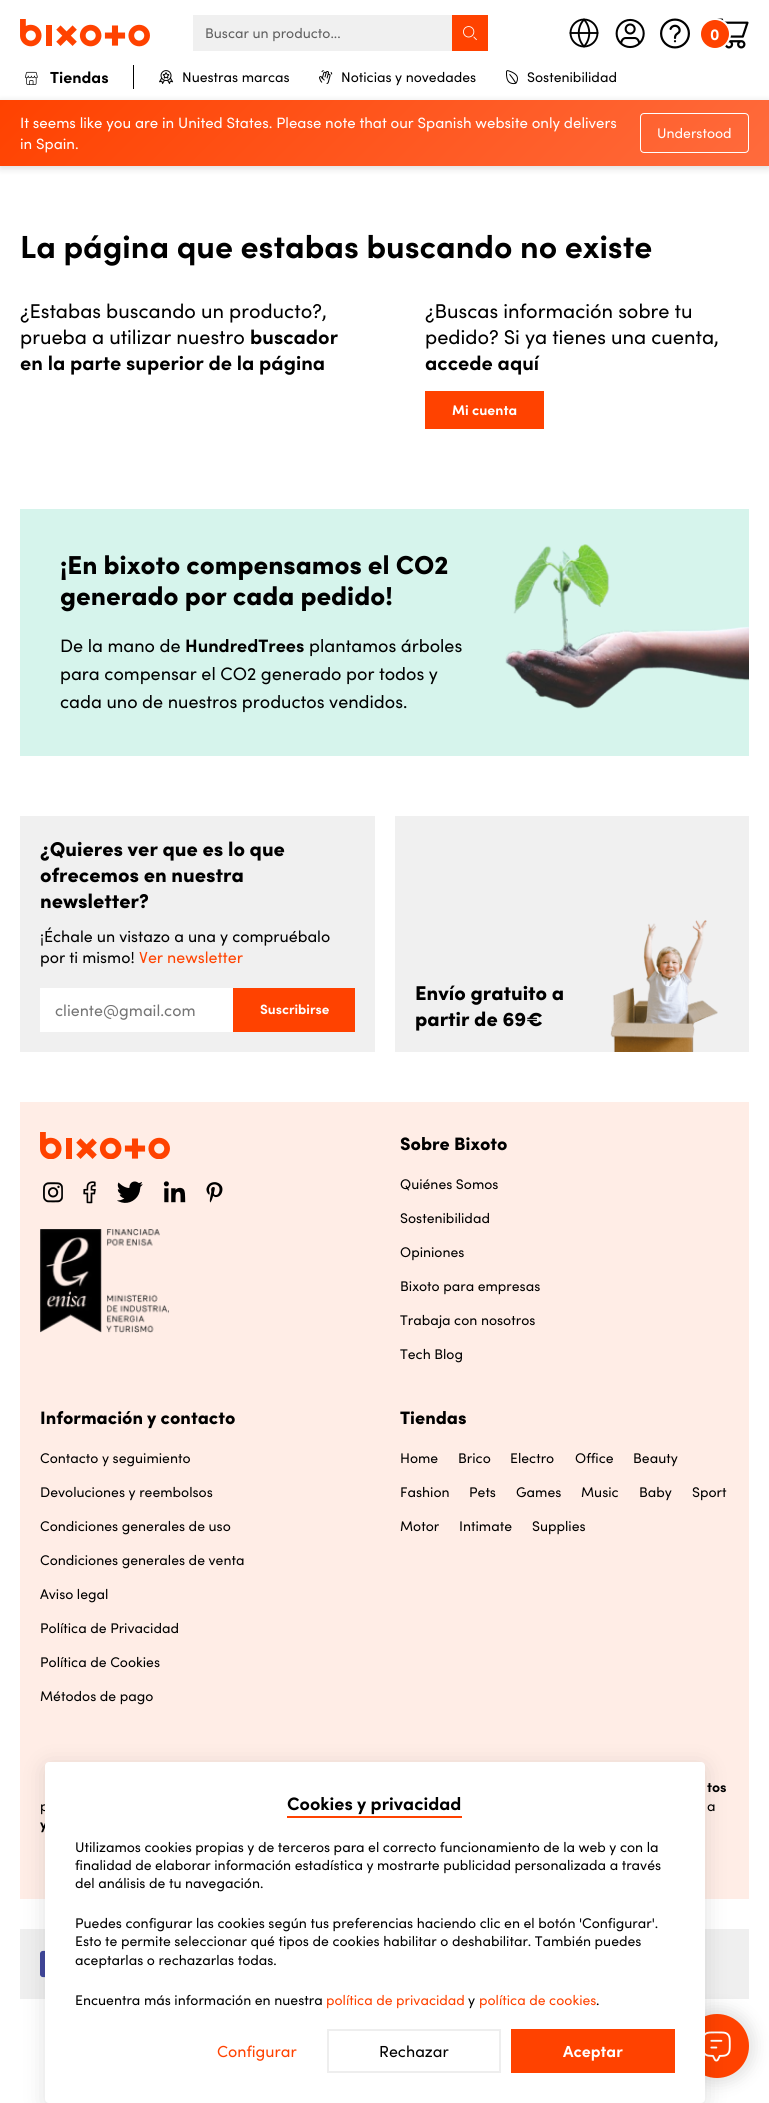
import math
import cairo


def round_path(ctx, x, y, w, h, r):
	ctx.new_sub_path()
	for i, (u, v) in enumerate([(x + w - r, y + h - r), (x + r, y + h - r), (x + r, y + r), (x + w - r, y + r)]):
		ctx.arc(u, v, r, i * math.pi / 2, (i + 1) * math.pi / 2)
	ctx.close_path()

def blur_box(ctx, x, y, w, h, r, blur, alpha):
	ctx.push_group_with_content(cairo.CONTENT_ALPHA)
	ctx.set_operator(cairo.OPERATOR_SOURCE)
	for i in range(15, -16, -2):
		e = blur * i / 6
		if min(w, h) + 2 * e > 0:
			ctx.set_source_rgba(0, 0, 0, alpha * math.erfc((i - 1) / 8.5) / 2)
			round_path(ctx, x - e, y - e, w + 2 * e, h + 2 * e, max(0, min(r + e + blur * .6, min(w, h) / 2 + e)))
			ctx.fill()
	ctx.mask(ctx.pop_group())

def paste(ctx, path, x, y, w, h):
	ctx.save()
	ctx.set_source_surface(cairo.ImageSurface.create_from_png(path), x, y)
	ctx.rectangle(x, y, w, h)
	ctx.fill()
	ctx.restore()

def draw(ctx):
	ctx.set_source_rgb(1, 1, 1)
	ctx.paint()
	paste(ctx, 'media/1.png', 20, 19, 130, 28)
	ctx.set_source_rgb(0.941, 0.941, 0.941)
	ctx.rectangle(193, 15, 259, 36)
	ctx.fill()
	ctx.select_font_face('Sofia')
	ctx.set_font_size(14)
	ctx.set_source_rgb(0.376, 0.376, 0.376)
	ctx.move_to(205, 38)
	ctx.show_text('Buscar un producto...')
	ctx.set_source_rgb(1, 0.259, 0)
	ctx.rectangle(452, 15, 36, 36)
	ctx.fill()
	paste(ctx, 'media/2.png', 463, 26, 14, 15)
	ctx.arc(584, 33, 13.5, 0, 2 * math.pi)
	ctx.set_source_rgb(0, 0, 0)
	ctx.set_line_width(1.9)
	ctx.stroke()
	ctx.new_path()
	ctx.move_to(584, 19.5)
	ctx.curve_to(577, 27, 577, 39, 584, 46.5)
	ctx.curve_to(591, 39, 591, 27, 584, 19.5)
	ctx.move_to(570.5, 33)
	ctx.line_to(597.5, 33)
	ctx.set_line_cap(cairo.LINE_CAP_ROUND)
	ctx.set_line_join(cairo.LINE_JOIN_ROUND)
	ctx.stroke()
	paste(ctx, 'media/3.png', 615, 18, 30, 31)
	paste(ctx, 'media/4.png', 660, 18, 30, 31)
	paste(ctx, 'media/5.png', 717, 18, 32, 31)
	ctx.set_source_rgb(1, 0.259, 0)
	ctx.arc(715, 34, 15, 0, 2 * math.pi)
	ctx.fill_preserve()
	ctx.set_source_rgb(1, 1, 1)
	ctx.set_line_width(2)
	ctx.set_line_cap(cairo.LINE_CAP_BUTT)
	ctx.set_line_join(cairo.LINE_JOIN_MITER)
	ctx.stroke()
	ctx.select_font_face('Sofia', cairo.FONT_SLANT_NORMAL, cairo.FONT_WEIGHT_BOLD)
	ctx.set_font_size(16)
	ctx.move_to(710, 40)
	ctx.show_text('0')
	ctx.set_source_rgb(0, 0, 0)
	ctx.rectangle(133, 65, 1, 24)
	ctx.fill()
	paste(ctx, 'media/6.png', 25, 71, 13, 14)
	ctx.move_to(50, 83)
	ctx.show_text('Tiendas')
	paste(ctx, 'media/7.png', 159, 70, 15, 14)
	ctx.select_font_face('Sofia')
	ctx.set_font_size(14)
	ctx.move_to(182, 82)
	ctx.show_text('Nuestras marcas')
	paste(ctx, 'media/8.png', 319, 70, 14, 14)
	ctx.move_to(341, 82)
	ctx.show_text('Noticias y novedades')
	paste(ctx, 'media/9.png', 506, 70, 12, 15)
	ctx.move_to(527, 82)
	ctx.show_text('Sostenibilidad')
	ctx.set_source_rgb(0, 0, 0)
	blur_box(ctx, 0, 102, 769, 66, 0, 4, 0.15)
	gradient = cairo.LinearGradient(176, -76, 593, 342)
	gradient.add_color_stop_rgba(0, 1, 0.259, 0, 1)
	gradient.add_color_stop_rgba(1, 1, 0.42, 0.239, 1)
	ctx.set_source(gradient)
	ctx.rectangle(0, 100, 769, 66)
	ctx.fill()
	ctx.set_font_size(15)
	ctx.set_source_rgb(1, 1, 1)
	ctx.move_to(20, 128)
	ctx.show_text('It seems like you are in United States. Please note that our Spanish website only delivers')
	ctx.move_to(20, 149)
	ctx.show_text('in Spain.')
	round_path(ctx, 640.5, 113.5, 108, 39, 3.5)
	ctx.set_line_width(1)
	ctx.stroke()
	ctx.set_font_size(14)
	ctx.move_to(657, 138)
	ctx.show_text('Understood')
	ctx.select_font_face('Sofia', cairo.FONT_SLANT_NORMAL, cairo.FONT_WEIGHT_BOLD)
	ctx.set_font_size(32)
	ctx.set_source_rgb(0, 0, 0)
	ctx.move_to(20, 258)
	ctx.show_text('La página que estabas buscando no existe')
	ctx.select_font_face('Sofia')
	ctx.set_font_size(20)
	ctx.move_to(20, 318)
	ctx.show_text('¿Estabas buscando un producto?,')
	ctx.move_to(20, 344)
	ctx.show_text('prueba a utilizar nuestro')
	ctx.select_font_face('Sofia', cairo.FONT_SLANT_NORMAL, cairo.FONT_WEIGHT_BOLD)
	ctx.move_to(250, 344)
	ctx.show_text('buscador')
	ctx.move_to(20, 370)
	ctx.show_text('en la parte superior de la página')
	ctx.select_font_face('Sofia')
	ctx.move_to(425, 318)
	ctx.show_text('¿Buscas información sobre tu')
	ctx.move_to(425, 344)
	ctx.show_text('pedido? Si ya tienes una cuenta,')
	ctx.select_font_face('Sofia', cairo.FONT_SLANT_NORMAL, cairo.FONT_WEIGHT_BOLD)
	ctx.move_to(425, 370)
	ctx.show_text('accede aquí')
	ctx.set_source_rgb(1, 0.259, 0)
	ctx.rectangle(425, 391, 119, 38)
	ctx.fill()
	ctx.set_font_size(14)
	ctx.set_source_rgb(1, 1, 1)
	ctx.move_to(452, 415)
	ctx.show_text('Mi cuenta')
	ctx.set_source_rgb(0.839, 0.957, 0.925)
	ctx.rectangle(20, 509, 729, 247)
	ctx.fill()
	ctx.select_font_face('Sofia Black')
	ctx.set_font_size(26)
	ctx.set_source_rgb(0, 0, 0)
	ctx.move_to(60, 574)
	ctx.show_text('¡En bixoto compensamos el CO2')
	ctx.move_to(60, 605)
	ctx.show_text('generado por cada pedido!')
	ctx.select_font_face('Sofia')
	ctx.set_font_size(18)
	ctx.move_to(60, 652)
	ctx.show_text('De la mano de')
	ctx.select_font_face('Sofia', cairo.FONT_SLANT_NORMAL, cairo.FONT_WEIGHT_BOLD)
	ctx.move_to(185, 652)
	ctx.show_text('HundredTrees')
	ctx.select_font_face('Sofia')
	for x, y, s in [
		(309, 652, 'plantamos árboles'),
		(60, 680, 'para compensar el CO2 generado por todos y'),
		(60, 708, 'cada uno de nuestros productos vendidos.'),
	]:
		ctx.move_to(x, y)
		ctx.show_text(s)
	paste(ctx, 'media/10.png', 505, 544, 244, 165)
	ctx.set_source_rgb(0.941, 0.941, 0.941)
	ctx.rectangle(20, 816, 355, 236)
	ctx.fill()
	ctx.select_font_face('Sofia Black')
	ctx.set_font_size(20)
	ctx.set_source_rgb(0, 0, 0)
	for x, y, s in [
		(40, 856, '¿Quieres ver que es lo que'),
		(40, 882, 'ofrecemos en nuestra'),
		(40, 908, 'newsletter?'),
	]:
		ctx.move_to(x, y)
		ctx.show_text(s)
	ctx.select_font_face('Sofia')
	ctx.set_font_size(16)
	ctx.move_to(40, 942)
	ctx.show_text('¡Échale un vistazo a una y compruébalo')
	ctx.move_to(40, 963)
	ctx.show_text('por ti mismo!')
	ctx.set_source_rgb(1, 0.259, 0)
	ctx.move_to(139, 963)
	ctx.show_text('Ver newsletter')
	ctx.set_source_rgb(1, 1, 1)
	ctx.rectangle(40, 988, 193, 44)
	ctx.fill()
	ctx.set_source_rgb(0.459, 0.459, 0.459)
	ctx.move_to(55, 1016)
	ctx.show_text('cliente@gmail.com')
	ctx.set_source_rgb(1, 0.259, 0)
	ctx.rectangle(233, 988, 122, 44)
	ctx.fill()
	ctx.select_font_face('Sofia', cairo.FONT_SLANT_NORMAL, cairo.FONT_WEIGHT_BOLD)
	ctx.set_font_size(13.5)
	ctx.set_source_rgb(1, 1, 1)
	ctx.move_to(260, 1014)
	ctx.show_text('Suscribirse')
	ctx.set_source_rgb(0.941, 0.941, 0.941)
	ctx.rectangle(395, 816, 354, 236)
	ctx.fill()
	ctx.select_font_face('Sofia Black')
	ctx.set_font_size(20)
	ctx.set_source_rgb(0, 0, 0)
	ctx.move_to(415, 1000)
	ctx.show_text('Envío gratuito a')
	ctx.move_to(415, 1026)
	ctx.show_text('partir de 69€')
	paste(ctx, 'media/11.png', 610, 920, 108, 132)
	ctx.set_source_rgb(1, 0.929, 0.902)
	ctx.rectangle(20, 1102, 729, 797)
	ctx.fill()
	paste(ctx, 'media/12.png', 40, 1132, 130, 27)
	paste(ctx, 'media/13.png', 43, 1182, 20, 21)
	paste(ctx, 'media/14.png', 83, 1181, 13, 23)
	paste(ctx, 'media/15.png', 117, 1181, 26, 22)
	paste(ctx, 'media/16.png', 163, 1181, 23, 22)
	paste(ctx, 'media/17.png', 206, 1182, 17, 21)
	paste(ctx, 'media/18.png', 40, 1229, 129, 104)
	ctx.set_font_size(18)
	ctx.set_source_rgb(0, 0, 0)
	ctx.move_to(400, 1150)
	ctx.show_text('Sobre Bixoto')
	ctx.select_font_face('Sofia')
	ctx.set_font_size(14)
	for x, y, s in [
		(400, 1189, 'Quiénes Somos'),
		(400, 1223, 'Sostenibilidad'),
		(400, 1257, 'Opiniones'),
		(400, 1291, 'Bixoto para empresas'),
		(400, 1325, 'Trabaja con nosotros'),
		(400, 1359, 'Tech Blog'),
	]:
		ctx.move_to(x, y)
		ctx.show_text(s)
	ctx.select_font_face('Sofia Black')
	ctx.set_font_size(18)
	ctx.move_to(40, 1424)
	ctx.show_text('Información y contacto')
	ctx.select_font_face('Sofia')
	ctx.set_font_size(14)
	for x, y, s in [
		(40, 1463, 'Contacto y seguimiento'),
		(40, 1497, 'Devoluciones y reembolsos'),
		(40, 1531, 'Condiciones generales de uso'),
		(40, 1565, 'Condiciones generales de venta'),
		(40, 1599, 'Aviso legal'),
		(40, 1633, 'Política de Privacidad'),
		(40, 1667, 'Política de Cookies'),
		(40, 1701, 'Métodos de pago'),
	]:
		ctx.move_to(x, y)
		ctx.show_text(s)
	ctx.select_font_face('Sofia Black')
	ctx.set_font_size(18)
	ctx.move_to(400, 1424)
	ctx.show_text('Tiendas')
	ctx.select_font_face('Sofia')
	ctx.set_font_size(14)
	for x, y, s in [
		(400, 1463, 'Home'),
		(458, 1463, 'Brico'),
		(510, 1463, 'Electro'),
		(575, 1463, 'Office'),
		(633, 1463, 'Beauty'),
		(400, 1497, 'Fashion'),
		(469, 1497, 'Pets'),
		(516, 1497, 'Games'),
		(581, 1497, 'Music'),
		(639, 1497, 'Baby'),
		(692, 1497, 'Sport'),
		(400, 1531, 'Motor'),
		(459, 1531, 'Intimate'),
		(532, 1531, 'Supplies'),
	]:
		ctx.move_to(x, y)
		ctx.show_text(s)
	ctx.select_font_face('Sofia', cairo.FONT_SLANT_NORMAL, cairo.FONT_WEIGHT_BOLD)
	ctx.move_to(707, 1792)
	ctx.show_text('tos')
	ctx.select_font_face('Sofia')
	ctx.move_to(707, 1811)
	ctx.show_text('a')
	ctx.move_to(40, 1811)
	ctx.show_text('p')
	ctx.select_font_face('Sofia', cairo.FONT_SLANT_NORMAL, cairo.FONT_WEIGHT_BOLD)
	ctx.move_to(40, 1829)
	ctx.show_text('y')
	ctx.set_source_rgb(0.937, 0.937, 0.937)
	ctx.rectangle(20, 1929, 729, 70)
	ctx.fill()
	paste(ctx, 'media/19.png', 40, 1950, 5, 28)
	ctx.set_source_rgb(0, 0, 0)
	blur_box(ctx, 680, 2009, 74, 74, 37, 8.5, 0.12)
	ctx.set_source_rgb(1, 0.259, 0)
	ctx.arc(717, 2046, 32, 0, 2 * math.pi)
	ctx.fill()
	paste(ctx, 'media/20.png', 705, 2031, 26, 31)
	ctx.set_source_rgb(0, 0, 0)
	blur_box(ctx, 45, 1766, 660, 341, 4, 12, 0.12)
	ctx.set_source_rgb(1, 1, 1)
	round_path(ctx, 45, 1762, 660, 341, 4)
	ctx.fill()
	ctx.set_source_rgb(1, 0.259, 0)
	ctx.rectangle(287, 1816, 175, 2)
	ctx.fill()
	ctx.set_font_size(18)
	ctx.set_source_rgb(0, 0, 0)
	ctx.move_to(287, 1810)
	ctx.show_text('Cookies y privacidad')
	ctx.select_font_face('Sofia')
	ctx.set_font_size(14)
	for x, y, s in [
		(75, 1852, 'Utilizamos cookies propias y de terceros para el correcto funcionamiento de la web y con la'),
		(75, 1870, 'finalidad de elaborar información estadística y mostrarte publicidad personalizada a través'),
		(75, 1888, 'del análisis de tu navegación.'),
		(75, 1928, 'Puedes configurar las cookies según tus preferencias haciendo clic en el botón \'Configurar\'.'),
		(75, 1946, 'Esto te permite seleccionar qué tipos de cookies habilitar o deshabilitar. También puedes'),
		(75, 1965, 'aceptarlas o rechazarlas todas.'),
		(75, 2005, 'Encuentra más información en nuestra'),
	]:
		ctx.move_to(x, y)
		ctx.show_text(s)
	ctx.set_source_rgb(1, 0.259, 0)
	ctx.move_to(326, 2005)
	ctx.show_text('política de privacidad')
	ctx.set_source_rgb(0, 0, 0)
	ctx.move_to(468, 2005)
	ctx.show_text('y')
	ctx.set_source_rgb(1, 0.259, 0)
	ctx.move_to(479, 2005)
	ctx.show_text('política de cookies')
	ctx.set_source_rgb(0, 0, 0)
	ctx.move_to(596, 2005)
	ctx.show_text('.')
	ctx.set_font_size(16)
	ctx.set_source_rgb(1, 0.259, 0)
	ctx.move_to(217, 2057)
	ctx.show_text('Configurar')
	ctx.rectangle(328, 2030, 172, 42)
	ctx.set_source_rgb(0.933, 0.933, 0.933)
	ctx.set_line_width(2)
	ctx.stroke()
	ctx.set_source_rgb(0, 0, 0)
	ctx.move_to(379, 2057)
	ctx.show_text('Rechazar')
	ctx.set_source_rgb(1, 0.259, 0)
	ctx.rectangle(511, 2029, 164, 44)
	ctx.fill()
	ctx.select_font_face('Sofia', cairo.FONT_SLANT_NORMAL, cairo.FONT_WEIGHT_BOLD)
	ctx.set_source_rgb(1, 1, 1)
	ctx.move_to(563, 2057)
	ctx.show_text('Aceptar')


surface = cairo.ImageSurface(cairo.FORMAT_RGB24, 769, 2103)
ctx = cairo.Context(surface)
options = cairo.FontOptions()
options.set_hint_metrics(cairo.HINT_METRICS_OFF)
options.set_hint_style(cairo.HINT_STYLE_NONE)
ctx.set_font_options(options)
ctx.set_miter_limit(4)
draw(ctx)
surface.write_to_png('image.png')
